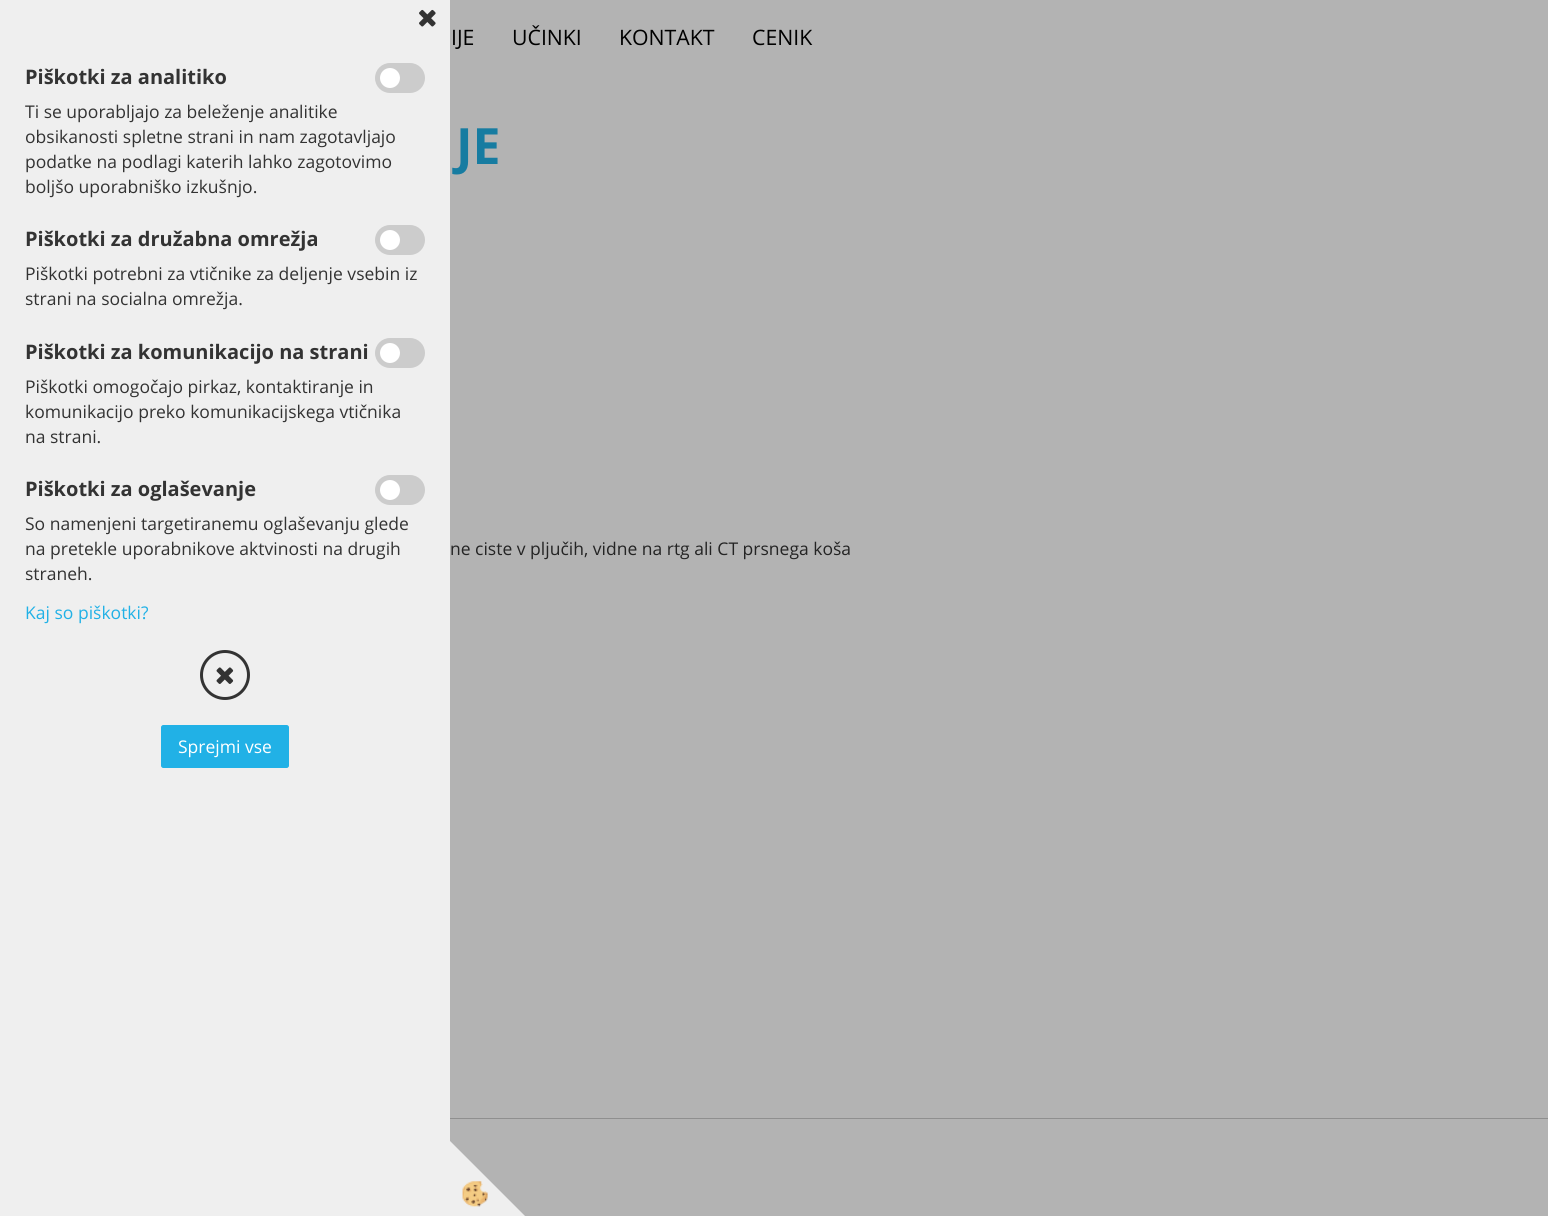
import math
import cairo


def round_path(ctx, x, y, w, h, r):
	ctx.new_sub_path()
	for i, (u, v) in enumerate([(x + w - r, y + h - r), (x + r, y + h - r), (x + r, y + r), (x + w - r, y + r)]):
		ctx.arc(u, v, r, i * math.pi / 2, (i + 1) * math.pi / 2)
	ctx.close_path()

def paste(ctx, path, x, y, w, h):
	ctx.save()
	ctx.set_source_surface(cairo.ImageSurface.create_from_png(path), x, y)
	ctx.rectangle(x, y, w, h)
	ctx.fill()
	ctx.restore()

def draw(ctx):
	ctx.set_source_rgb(0.702, 0.702, 0.702)
	ctx.paint()
	ctx.set_source_rgb(0.937, 0.937, 0.937)
	ctx.rectangle(0, 0, 450, 1216)
	ctx.fill()
	paste(ctx, 'media/1.png', 419, 9, 17, 18)
	ctx.select_font_face('Open Sans', cairo.FONT_SLANT_NORMAL, cairo.FONT_WEIGHT_BOLD)
	ctx.set_font_size(20)
	ctx.set_source_rgb(0.2, 0.2, 0.2)
	ctx.move_to(25, 84)
	ctx.show_text('Piškotki za analitiko')
	ctx.set_source_rgb(0.8, 0.8, 0.8)
	round_path(ctx, 375, 63, 50, 30, 15)
	ctx.fill()
	ctx.set_source_rgb(1, 1, 1)
	ctx.arc(390, 78, 10, 0, 2 * math.pi)
	ctx.fill()
	ctx.select_font_face('Open Sans')
	ctx.set_font_size(17.5)
	ctx.set_source_rgb(0.2, 0.2, 0.2)
	for x, y, s in [
		(25, 118, 'Ti se uporabljajo za beleženje analitike'),
		(25, 143, 'obsikanosti spletne strani in nam zagotavljajo'),
		(25, 168, 'podatke na podlagi katerih lahko zagotovimo'),
		(25, 193, 'boljšo uporabniško izkušnjo.'),
	]:
		ctx.move_to(x, y)
		ctx.show_text(s)
	ctx.select_font_face('Open Sans', cairo.FONT_SLANT_NORMAL, cairo.FONT_WEIGHT_BOLD)
	ctx.set_font_size(20)
	ctx.move_to(25, 246)
	ctx.show_text('Piškotki za družabna omrežja')
	ctx.set_source_rgb(0.8, 0.8, 0.8)
	round_path(ctx, 375, 225, 50, 30, 15)
	ctx.fill()
	ctx.set_source_rgb(1, 1, 1)
	ctx.arc(390, 240, 10, 0, 2 * math.pi)
	ctx.fill()
	ctx.select_font_face('Open Sans')
	ctx.set_font_size(17.5)
	ctx.set_source_rgb(0.2, 0.2, 0.2)
	ctx.move_to(25, 280)
	ctx.show_text('Piškotki potrebni za vtičnike za deljenje vsebin iz')
	ctx.move_to(25, 305)
	ctx.show_text('strani na socialna omrežja.')
	ctx.select_font_face('Open Sans', cairo.FONT_SLANT_NORMAL, cairo.FONT_WEIGHT_BOLD)
	ctx.set_font_size(20)
	ctx.move_to(25, 359)
	ctx.show_text('Piškotki za komunikacijo na strani')
	ctx.set_source_rgb(0.8, 0.8, 0.8)
	round_path(ctx, 375, 338, 50, 30, 15)
	ctx.fill()
	ctx.set_source_rgb(1, 1, 1)
	ctx.arc(390, 353, 10, 0, 2 * math.pi)
	ctx.fill()
	ctx.select_font_face('Open Sans')
	ctx.set_font_size(17.5)
	ctx.set_source_rgb(0.2, 0.2, 0.2)
	for x, y, s in [
		(25, 393, 'Piškotki omogočajo pirkaz, kontaktiranje in'),
		(25, 418, 'komunikacijo preko komunikacijskega vtičnika'),
		(25, 443, 'na strani.'),
	]:
		ctx.move_to(x, y)
		ctx.show_text(s)
	ctx.select_font_face('Open Sans', cairo.FONT_SLANT_NORMAL, cairo.FONT_WEIGHT_BOLD)
	ctx.set_font_size(20)
	ctx.move_to(25, 496)
	ctx.show_text('Piškotki za oglaševanje')
	ctx.set_source_rgb(0.8, 0.8, 0.8)
	round_path(ctx, 375, 475, 50, 30, 15)
	ctx.fill()
	ctx.set_source_rgb(1, 1, 1)
	ctx.arc(390, 490, 10, 0, 2 * math.pi)
	ctx.fill()
	ctx.select_font_face('Open Sans')
	ctx.set_font_size(17.5)
	ctx.set_source_rgb(0.2, 0.2, 0.2)
	for x, y, s in [
		(25, 530, 'So namenjeni targetiranemu oglaševanju glede'),
		(25, 555, 'na pretekle uporabnikove aktvinosti na drugih'),
		(25, 580, 'straneh.'),
	]:
		ctx.move_to(x, y)
		ctx.show_text(s)
	ctx.set_source_rgb(0.129, 0.694, 0.902)
	ctx.move_to(25, 619)
	ctx.show_text('Kaj so piškotki?')
	ctx.new_path()
	ctx.arc(225, 675, 23.5, 0, 2 * math.pi)
	ctx.set_source_rgb(0.2, 0.2, 0.2)
	ctx.set_line_width(3)
	ctx.stroke()
	paste(ctx, 'media/2.png', 216, 667, 18, 17)
	ctx.set_source_rgb(0.129, 0.694, 0.902)
	round_path(ctx, 161.5, 725.5, 127, 42, 2)
	ctx.fill_preserve()
	ctx.set_line_width(1)
	ctx.stroke()
	ctx.set_source_rgb(1, 1, 1)
	ctx.move_to(178, 753)
	ctx.show_text('Sprejmi vse')
	ctx.set_source_rgb(0.937, 0.937, 0.937)
	ctx.new_path()
	ctx.move_to(525, 1216)
	ctx.line_to(450, 1216)
	ctx.line_to(450, 1141)
	ctx.close_path()
	ctx.fill()
	paste(ctx, 'media/3.png', 462, 1181, 26, 26)
	ctx.set_font_size(21.25)
	ctx.set_source_rgb(0, 0, 0)
	for x, y, s in [
		(451, 45, 'IJE'),
		(512, 45, 'UČINKI'),
		(619, 45, 'KONTAKT'),
		(752, 45, 'CENIK'),
	]:
		ctx.move_to(x, y)
		ctx.show_text(s)
	ctx.select_font_face('Open Sans', cairo.FONT_SLANT_NORMAL, cairo.FONT_WEIGHT_BOLD)
	ctx.set_font_size(50)
	ctx.set_source_rgb(0.09, 0.486, 0.631)
	ctx.move_to(456, 164)
	ctx.show_text('JE')
	ctx.select_font_face('Open Sans')
	ctx.set_font_size(17.5)
	ctx.set_source_rgb(0.141, 0.141, 0.141)
	ctx.move_to(450, 555)
	ctx.show_text('ne ciste v pljučih, vidne na rtg ali CT prsnega koša')
	ctx.set_source_rgb(0.561, 0.561, 0.561)
	ctx.rectangle(450, 1118, 1098, 1)
	ctx.fill()


surface = cairo.ImageSurface(cairo.FORMAT_RGB24, 1548, 1216)
ctx = cairo.Context(surface)
options = cairo.FontOptions()
options.set_hint_metrics(cairo.HINT_METRICS_OFF)
options.set_hint_style(cairo.HINT_STYLE_NONE)
ctx.set_font_options(options)
ctx.set_miter_limit(4)
draw(ctx)
surface.write_to_png('image.png')
